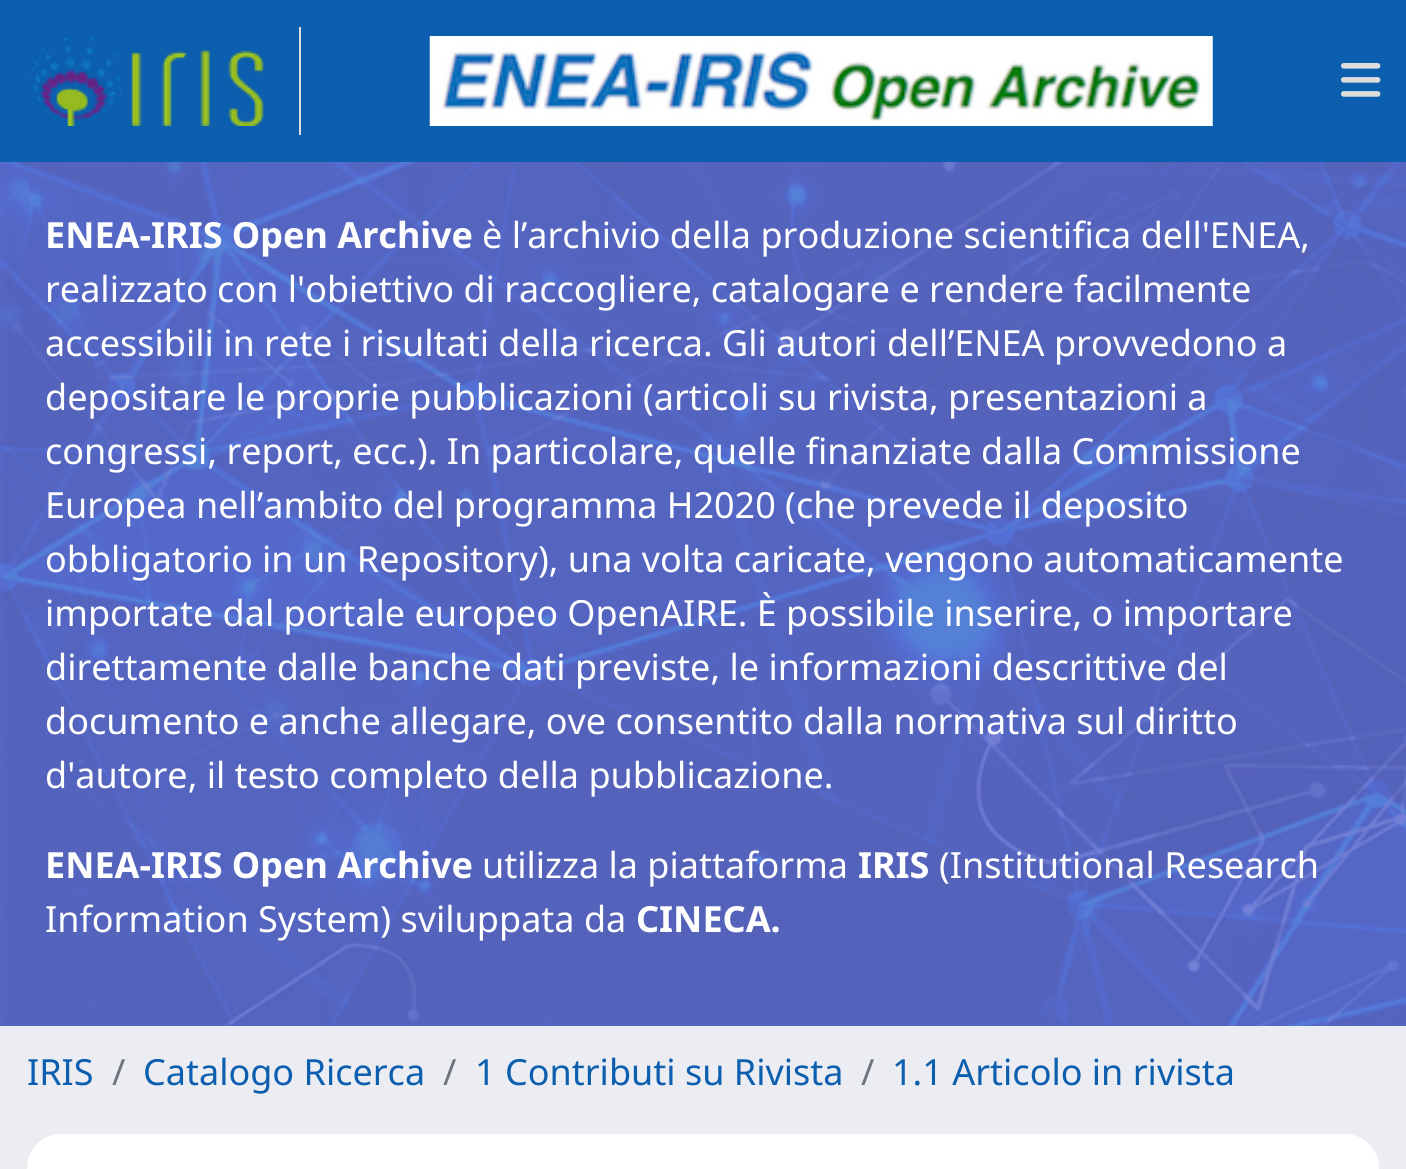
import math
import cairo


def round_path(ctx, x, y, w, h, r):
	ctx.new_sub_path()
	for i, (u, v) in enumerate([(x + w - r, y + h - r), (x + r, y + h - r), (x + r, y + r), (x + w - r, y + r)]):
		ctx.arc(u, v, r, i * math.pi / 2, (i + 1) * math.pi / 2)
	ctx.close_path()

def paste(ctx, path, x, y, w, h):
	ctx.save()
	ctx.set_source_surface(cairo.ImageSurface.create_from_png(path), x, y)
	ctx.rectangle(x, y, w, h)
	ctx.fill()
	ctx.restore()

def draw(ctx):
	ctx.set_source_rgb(0.925, 0.929, 0.949)
	ctx.paint()
	ctx.set_source_rgb(0.047, 0.369, 0.682)
	ctx.rectangle(0, 0, 1406, 162)
	ctx.fill()
	ctx.set_source_rgb(0.867, 0.867, 0.867)
	ctx.rectangle(299, 27, 2, 108)
	ctx.fill()
	paste(ctx, 'media/1.png', 29, 36, 235, 90)
	paste(ctx, 'media/2.png', 429, 36, 784, 90)
	paste(ctx, 'media/3.png', 1341, 63, 40, 34)
	paste(ctx, 'media/4.png', 0, 162, 1406, 864)
	ctx.select_font_face('Noto Sans', cairo.FONT_SLANT_NORMAL, cairo.FONT_WEIGHT_BOLD)
	ctx.set_font_size(36)
	ctx.set_source_rgb(1, 1, 1)
	ctx.move_to(45, 248)
	ctx.show_text('ENEA-IRIS Open Archive')
	ctx.select_font_face('Noto Sans')
	for x, y, s in [
		(482, 248, 'è l’archivio della produzione scientifica dell\'ENEA,'),
		(45, 302, 'realizzato con l\'obiettivo di raccogliere, catalogare e rendere facilmente'),
		(45, 356, 'accessibili in rete i risultati della ricerca. Gli autori dell’ENEA provvedono a'),
		(45, 410, 'depositare le proprie pubblicazioni (articoli su rivista, presentazioni a'),
		(45, 464, 'congressi, report, ecc.). In particolare, quelle finanziate dalla Commissione'),
		(45, 518, 'Europea nell’ambito del programma H2020 (che prevede il deposito'),
		(45, 572, 'obbligatorio in un Repository), una volta caricate, vengono automaticamente'),
		(45, 626, 'importate dal portale europeo OpenAIRE. È possibile inserire, o importare'),
		(45, 680, 'direttamente dalle banche dati previste, le informazioni descrittive del'),
		(45, 734, 'documento e anche allegare, ove consentito dalla normativa sul diritto'),
		(45, 788, 'd\'autore, il testo completo della pubblicazione.'),
	]:
		ctx.move_to(x, y)
		ctx.show_text(s)
	ctx.select_font_face('Noto Sans', cairo.FONT_SLANT_NORMAL, cairo.FONT_WEIGHT_BOLD)
	ctx.move_to(45, 878)
	ctx.show_text('ENEA-IRIS Open Archive')
	ctx.select_font_face('Noto Sans')
	ctx.move_to(482, 878)
	ctx.show_text('utilizza la piattaforma')
	ctx.select_font_face('Noto Sans', cairo.FONT_SLANT_NORMAL, cairo.FONT_WEIGHT_BOLD)
	ctx.move_to(858, 878)
	ctx.show_text('IRIS')
	ctx.select_font_face('Noto Sans')
	ctx.move_to(939, 878)
	ctx.show_text('(Institutional Research')
	ctx.move_to(45, 932)
	ctx.show_text('Information System) sviluppata da')
	ctx.select_font_face('Noto Sans', cairo.FONT_SLANT_NORMAL, cairo.FONT_WEIGHT_BOLD)
	ctx.move_to(636, 932)
	ctx.show_text('CINECA.')
	ctx.select_font_face('Noto Sans')
	ctx.set_source_rgb(0.047, 0.369, 0.682)
	ctx.move_to(27, 1085)
	ctx.show_text('IRIS')
	ctx.set_source_rgb(0.424, 0.459, 0.49)
	ctx.move_to(112, 1085)
	ctx.show_text('/')
	ctx.set_source_rgb(0.047, 0.369, 0.682)
	ctx.move_to(143, 1085)
	ctx.show_text('Catalogo Ricerca')
	ctx.set_source_rgb(0.424, 0.459, 0.49)
	ctx.move_to(443, 1085)
	ctx.show_text('/')
	ctx.set_source_rgb(0.047, 0.369, 0.682)
	ctx.move_to(475, 1085)
	ctx.show_text('1 Contributi su Rivista')
	ctx.set_source_rgb(0.424, 0.459, 0.49)
	ctx.move_to(861, 1085)
	ctx.show_text('/')
	ctx.set_source_rgb(0.047, 0.369, 0.682)
	ctx.move_to(892, 1085)
	ctx.show_text('1.1 Articolo in rivista')
	ctx.set_source_rgb(1, 1, 1)
	round_path(ctx, 27, 1134, 1352, 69, 34)
	ctx.fill()


surface = cairo.ImageSurface(cairo.FORMAT_RGB24, 1406, 1169)
ctx = cairo.Context(surface)
options = cairo.FontOptions()
options.set_hint_metrics(cairo.HINT_METRICS_OFF)
options.set_hint_style(cairo.HINT_STYLE_NONE)
ctx.set_font_options(options)
ctx.set_miter_limit(4)
draw(ctx)
surface.write_to_png('image.png')
